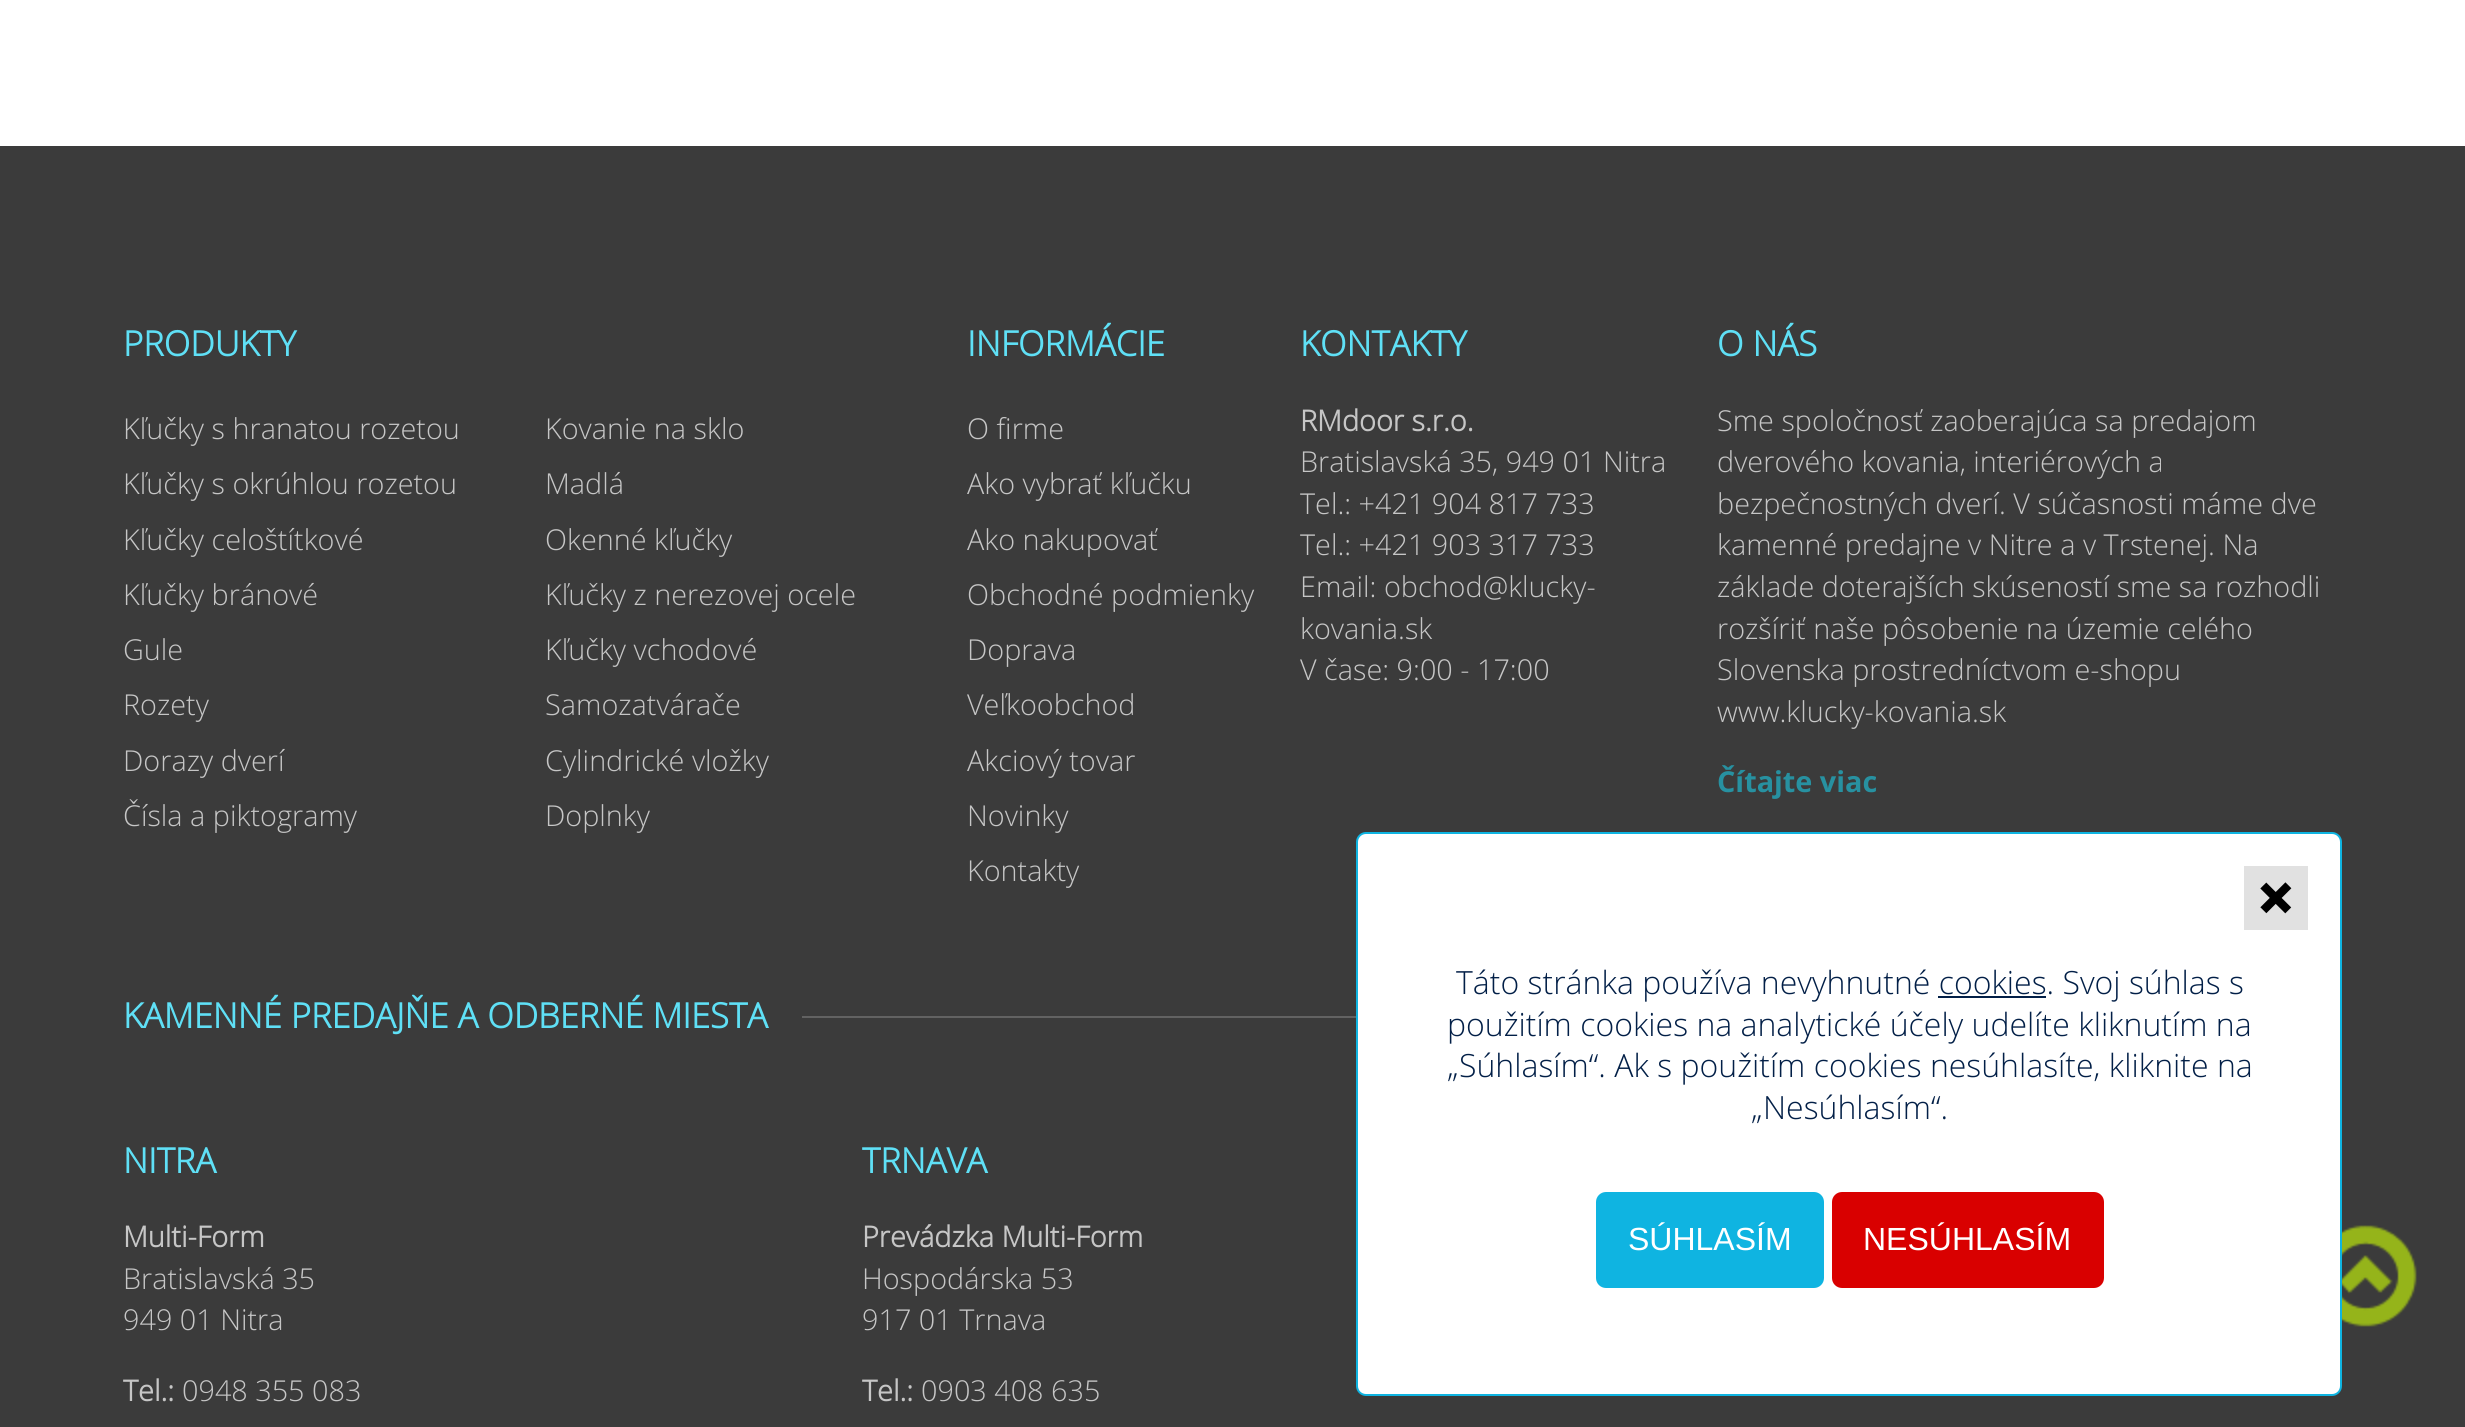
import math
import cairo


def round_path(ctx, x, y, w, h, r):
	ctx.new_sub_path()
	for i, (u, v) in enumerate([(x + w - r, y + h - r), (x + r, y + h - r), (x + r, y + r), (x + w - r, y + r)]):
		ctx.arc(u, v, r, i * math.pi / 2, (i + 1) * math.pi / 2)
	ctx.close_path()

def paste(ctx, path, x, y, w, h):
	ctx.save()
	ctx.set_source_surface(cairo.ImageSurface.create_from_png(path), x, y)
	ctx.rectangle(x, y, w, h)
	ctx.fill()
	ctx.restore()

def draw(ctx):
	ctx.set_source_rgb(1, 1, 1)
	ctx.paint()
	ctx.set_source_rgb(0.231, 0.231, 0.231)
	ctx.rectangle(0, 146, 2465, 1281)
	ctx.fill()
	ctx.select_font_face('Open Sans', cairo.FONT_SLANT_NORMAL, cairo.FONT_WEIGHT_BOLD)
	ctx.set_font_size(34.6)
	ctx.set_source_rgb(0.373, 0.878, 0.961)
	ctx.move_to(123, 356)
	ctx.show_text('PRODUKTY')
	ctx.select_font_face('Open Sans Light')
	ctx.set_font_size(28.8)
	ctx.set_source_rgb(0.776, 0.776, 0.776)
	for x, y, s in [
		(123, 439, 'Kľučky s hranatou rozetou'),
		(123, 494, 'Kľučky s okrúhlou rozetou'),
		(123, 550, 'Kľučky celoštítkové'),
		(123, 605, 'Kľučky bránové'),
		(123, 660, 'Gule'),
		(123, 715, 'Rozety'),
		(123, 771, 'Dorazy dverí'),
		(123, 826, 'Čísla a piktogramy'),
		(545, 439, 'Kovanie na sklo'),
		(545, 494, 'Madlá'),
		(545, 550, 'Okenné kľučky'),
		(545, 605, 'Kľučky z nerezovej ocele'),
		(545, 660, 'Kľučky vchodové'),
		(545, 715, 'Samozatvárače'),
		(545, 771, 'Cylindrické vložky'),
		(545, 826, 'Doplnky'),
	]:
		ctx.move_to(x, y)
		ctx.show_text(s)
	ctx.select_font_face('Open Sans', cairo.FONT_SLANT_NORMAL, cairo.FONT_WEIGHT_BOLD)
	ctx.set_font_size(34.6)
	ctx.set_source_rgb(0.373, 0.878, 0.961)
	ctx.move_to(967, 356)
	ctx.show_text('INFORMÁCIE')
	ctx.select_font_face('Open Sans Light')
	ctx.set_font_size(28.8)
	ctx.set_source_rgb(0.776, 0.776, 0.776)
	for x, y, s in [
		(967, 439, 'O firme'),
		(967, 494, 'Ako vybrať kľučku'),
		(967, 550, 'Ako nakupovať'),
		(967, 605, 'Obchodné podmienky'),
		(967, 660, 'Doprava'),
		(967, 715, 'Veľkoobchod'),
		(967, 771, 'Akciový tovar'),
		(967, 826, 'Novinky'),
		(967, 881, 'Kontakty'),
	]:
		ctx.move_to(x, y)
		ctx.show_text(s)
	ctx.select_font_face('Open Sans', cairo.FONT_SLANT_NORMAL, cairo.FONT_WEIGHT_BOLD)
	ctx.set_font_size(34.6)
	ctx.set_source_rgb(0.373, 0.878, 0.961)
	ctx.move_to(1300, 356)
	ctx.show_text('KONTAKTY')
	ctx.set_font_size(28.8)
	ctx.set_source_rgb(0.776, 0.776, 0.776)
	ctx.move_to(1300, 431)
	ctx.show_text('RMdoor s.r.o.')
	ctx.select_font_face('Open Sans Light')
	for x, y, s in [
		(1300, 472, 'Bratislavská 35, 949 01 Nitra'),
		(1300, 514, 'Tel.: +421 904 817 733'),
		(1300, 555, 'Tel.: +421 903 317 733'),
		(1300, 597, 'Email: obchod@klucky-'),
		(1300, 639, 'kovania.sk'),
		(1300, 680, 'V čase: 9:00 - 17:00'),
	]:
		ctx.move_to(x, y)
		ctx.show_text(s)
	ctx.select_font_face('Open Sans', cairo.FONT_SLANT_NORMAL, cairo.FONT_WEIGHT_BOLD)
	ctx.set_font_size(34.6)
	ctx.set_source_rgb(0.373, 0.878, 0.961)
	ctx.move_to(1717, 356)
	ctx.show_text('O NÁS')
	ctx.select_font_face('Open Sans Light')
	ctx.set_font_size(28.8)
	ctx.set_source_rgb(0.776, 0.776, 0.776)
	for x, y, s in [
		(1717, 431, 'Sme spoločnosť zaoberajúca sa predajom'),
		(1717, 472, 'dverového kovania, interiérových a'),
		(1717, 514, 'bezpečnostných dverí. V súčasnosti máme dve'),
		(1717, 555, 'kamenné predajne v Nitre a v Trstenej. Na'),
		(1717, 597, 'základe doterajších skúseností sme sa rozhodli'),
		(1717, 639, 'rozšíriť naše pôsobenie na územie celého'),
		(1717, 680, 'Slovenska prostredníctvom e-shopu'),
		(1717, 722, 'www.klucky-kovania.sk'),
	]:
		ctx.move_to(x, y)
		ctx.show_text(s)
	ctx.select_font_face('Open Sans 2', cairo.FONT_SLANT_NORMAL, cairo.FONT_WEIGHT_BOLD)
	ctx.set_source_rgb(0.153, 0.569, 0.631)
	ctx.move_to(1717, 792)
	ctx.show_text('Čítajte viac')
	ctx.set_source_rgb(0.384, 0.384, 0.384)
	ctx.rectangle(802, 1016, 554, 2)
	ctx.fill()
	ctx.select_font_face('Open Sans', cairo.FONT_SLANT_NORMAL, cairo.FONT_WEIGHT_BOLD)
	ctx.set_font_size(34.6)
	ctx.set_source_rgb(0.373, 0.878, 0.961)
	ctx.move_to(123, 1028)
	ctx.show_text('KAMENNÉ PREDAJŇE A ODBERNÉ MIESTA')
	ctx.move_to(123, 1173)
	ctx.show_text('NITRA')
	ctx.set_font_size(28.8)
	ctx.set_source_rgb(0.776, 0.776, 0.776)
	ctx.move_to(123, 1247)
	ctx.show_text('Multi-Form')
	ctx.select_font_face('Open Sans Light')
	ctx.move_to(123, 1289)
	ctx.show_text('Bratislavská 35')
	ctx.move_to(123, 1330)
	ctx.show_text('949 01 Nitra')
	ctx.select_font_face('Open Sans', cairo.FONT_SLANT_NORMAL, cairo.FONT_WEIGHT_BOLD)
	ctx.move_to(123, 1401)
	ctx.show_text('Tel.:')
	ctx.select_font_face('Open Sans Light')
	ctx.move_to(182, 1401)
	ctx.show_text('0948 355 083')
	ctx.select_font_face('Open Sans', cairo.FONT_SLANT_NORMAL, cairo.FONT_WEIGHT_BOLD)
	ctx.set_font_size(34.6)
	ctx.set_source_rgb(0.373, 0.878, 0.961)
	ctx.move_to(862, 1173)
	ctx.show_text('TRNAVA')
	ctx.set_font_size(28.8)
	ctx.set_source_rgb(0.776, 0.776, 0.776)
	ctx.move_to(862, 1247)
	ctx.show_text('Prevádzka Multi-Form')
	ctx.select_font_face('Open Sans Light')
	ctx.move_to(862, 1289)
	ctx.show_text('Hospodárska 53')
	ctx.move_to(862, 1330)
	ctx.show_text('917 01 Trnava')
	ctx.select_font_face('Open Sans', cairo.FONT_SLANT_NORMAL, cairo.FONT_WEIGHT_BOLD)
	ctx.move_to(862, 1401)
	ctx.show_text('Tel.:')
	ctx.select_font_face('Open Sans Light')
	ctx.move_to(921, 1401)
	ctx.show_text('0903 408 635')
	ctx.set_source_rgb(1, 1, 1)
	round_path(ctx, 1357, 833, 984, 562, 9)
	ctx.fill_preserve()
	ctx.set_source_rgb(0.059, 0.706, 0.882)
	ctx.stroke()
	ctx.set_source_rgb(0.882, 0.882, 0.882)
	ctx.rectangle(2244, 866, 64, 64)
	ctx.fill()
	paste(ctx, 'media/1.png', 2260, 882, 32, 32)
	ctx.set_font_size(32)
	ctx.set_source_rgb(0.008, 0.122, 0.278)
	ctx.move_to(1456, 994)
	ctx.show_text('Táto stránka používa nevyhnutné cookies. Svoj súhlas s')
	ctx.rectangle(1938, 996, 108, 2)
	ctx.fill()
	for x, y, s in [
		(1447, 1036, 'použitím cookies na analytické účely udelíte kliknutím na'),
		(1447, 1077, '„Súhlasím“. Ak s použitím cookies nesúhlasíte, kliknite na'),
		(1751, 1119, '„Nesúhlasím“.'),
	]:
		ctx.move_to(x, y)
		ctx.show_text(s)
	ctx.set_source_rgb(0.059, 0.706, 0.882)
	round_path(ctx, 1596, 1192, 228, 96, 10)
	ctx.fill()
	ctx.select_font_face('Liberation Sans')
	ctx.set_source_rgb(1, 1, 1)
	ctx.move_to(1628, 1250)
	ctx.show_text('SÚHLASÍM')
	ctx.set_source_rgb(0.851, 0, 0)
	round_path(ctx, 1832, 1192, 272, 96, 10)
	ctx.fill()
	ctx.set_source_rgb(1, 1, 1)
	ctx.move_to(1863, 1250)
	ctx.show_text('NESÚHLASÍM')
	paste(ctx, 'media/2.png', 2342, 1225, 75, 102)


surface = cairo.ImageSurface(cairo.FORMAT_RGB24, 2465, 1427)
ctx = cairo.Context(surface)
options = cairo.FontOptions()
options.set_hint_metrics(cairo.HINT_METRICS_OFF)
options.set_hint_style(cairo.HINT_STYLE_NONE)
ctx.set_font_options(options)
ctx.set_miter_limit(4)
draw(ctx)
surface.write_to_png('image.png')
